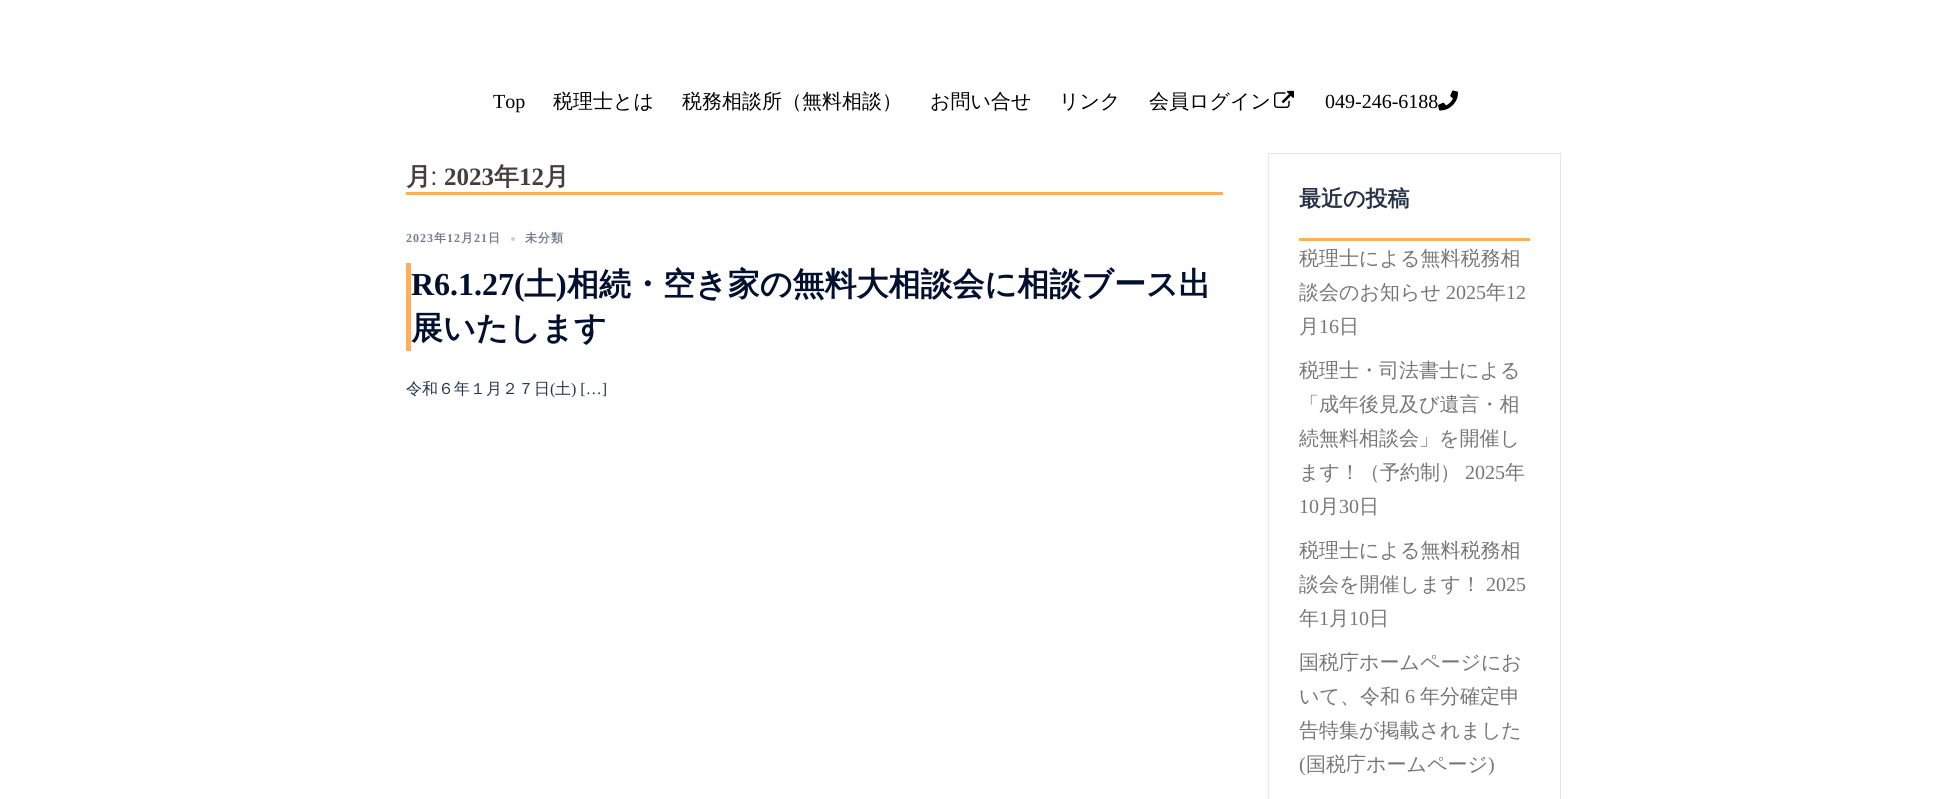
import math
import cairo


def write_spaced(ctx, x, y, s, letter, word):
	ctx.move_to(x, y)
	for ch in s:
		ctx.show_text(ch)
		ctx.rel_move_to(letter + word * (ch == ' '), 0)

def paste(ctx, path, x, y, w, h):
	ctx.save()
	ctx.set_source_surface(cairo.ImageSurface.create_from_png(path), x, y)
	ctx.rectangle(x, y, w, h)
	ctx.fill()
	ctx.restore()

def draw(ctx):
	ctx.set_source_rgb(1, 1, 1)
	ctx.paint()
	ctx.select_font_face('Liberation Serif')
	ctx.set_font_size(20)
	ctx.set_source_rgb(0, 0, 0)
	ctx.move_to(493, 108)
	ctx.show_text('Top')
	ctx.select_font_face('WenQuanYi Zen Hei Medium')
	for x, y, s in [
		(553, 108, '税理士とは'),
		(682, 108, '税務相談所（無料相談）'),
		(930, 108, 'お問い合せ'),
		(1059, 108, 'リンク'),
		(1149, 108, '会員ログイン'),
	]:
		ctx.move_to(x, y)
		ctx.show_text(s)
	paste(ctx, 'media/1.png', 1274, 90, 20, 18)
	ctx.select_font_face('Liberation Serif')
	ctx.move_to(1325, 108)
	ctx.show_text('049-246-6188')
	paste(ctx, 'media/2.png', 1438, 90, 20, 21)
	ctx.set_source_rgb(1, 0.686, 0.345)
	ctx.rectangle(406, 192, 817, 3)
	ctx.fill()
	ctx.select_font_face('WenQuanYi Zen Hei', cairo.FONT_SLANT_NORMAL, cairo.FONT_WEIGHT_BOLD)
	ctx.set_font_size(25)
	ctx.set_source_rgb(0.267, 0.247, 0.247)
	ctx.move_to(406, 185)
	ctx.show_text('月')
	ctx.select_font_face('Carrois Gothic')
	ctx.move_to(431, 185)
	ctx.show_text(':')
	ctx.select_font_face('Liberation Serif', cairo.FONT_SLANT_NORMAL, cairo.FONT_WEIGHT_BOLD)
	ctx.move_to(444, 185)
	ctx.show_text('2023')
	ctx.select_font_face('WenQuanYi Zen Hei', cairo.FONT_SLANT_NORMAL, cairo.FONT_WEIGHT_BOLD)
	ctx.move_to(494, 185)
	ctx.show_text('年')
	ctx.select_font_face('Liberation Serif', cairo.FONT_SLANT_NORMAL, cairo.FONT_WEIGHT_BOLD)
	ctx.move_to(519, 185)
	ctx.show_text('12')
	ctx.select_font_face('WenQuanYi Zen Hei', cairo.FONT_SLANT_NORMAL, cairo.FONT_WEIGHT_BOLD)
	ctx.move_to(544, 185)
	ctx.show_text('月')
	ctx.select_font_face('Liberation Serif', cairo.FONT_SLANT_NORMAL, cairo.FONT_WEIGHT_BOLD)
	ctx.set_font_size(12)
	ctx.set_source_rgb(0.451, 0.486, 0.549)
	write_spaced(ctx, 406, 242, '2023', 1, 0)
	ctx.select_font_face('WenQuanYi Zen Hei', cairo.FONT_SLANT_NORMAL, cairo.FONT_WEIGHT_BOLD)
	write_spaced(ctx, 434, 242, '年', 1, 0)
	ctx.select_font_face('Liberation Serif', cairo.FONT_SLANT_NORMAL, cairo.FONT_WEIGHT_BOLD)
	write_spaced(ctx, 447, 242, '12', 1, 0)
	ctx.select_font_face('WenQuanYi Zen Hei', cairo.FONT_SLANT_NORMAL, cairo.FONT_WEIGHT_BOLD)
	write_spaced(ctx, 461, 242, '月', 1, 0)
	ctx.select_font_face('Liberation Serif', cairo.FONT_SLANT_NORMAL, cairo.FONT_WEIGHT_BOLD)
	write_spaced(ctx, 474, 242, '21', 1, 0)
	ctx.select_font_face('WenQuanYi Zen Hei', cairo.FONT_SLANT_NORMAL, cairo.FONT_WEIGHT_BOLD)
	write_spaced(ctx, 488, 242, '日', 1, 0)
	ctx.set_source_rgb(0.8, 0.812, 0.835)
	ctx.new_path()
	ctx.arc(513, 239, 2, 0, 2 * math.pi)
	ctx.fill()
	ctx.set_source_rgb(0.451, 0.486, 0.549)
	write_spaced(ctx, 525, 242, '未分類', 1, 0)
	ctx.set_source_rgb(1, 0.686, 0.345)
	ctx.rectangle(406, 263, 5, 88)
	ctx.fill()
	ctx.select_font_face('Liberation Serif', cairo.FONT_SLANT_NORMAL, cairo.FONT_WEIGHT_BOLD)
	ctx.set_font_size(32)
	ctx.set_source_rgb(0, 0.063, 0.18)
	ctx.move_to(411, 295)
	ctx.show_text('R6.1.27(')
	ctx.select_font_face('WenQuanYi Zen Hei', cairo.FONT_SLANT_NORMAL, cairo.FONT_WEIGHT_BOLD)
	ctx.move_to(524, 295)
	ctx.show_text('土')
	ctx.select_font_face('Liberation Serif', cairo.FONT_SLANT_NORMAL, cairo.FONT_WEIGHT_BOLD)
	ctx.move_to(556, 295)
	ctx.show_text(')')
	ctx.select_font_face('WenQuanYi Zen Hei', cairo.FONT_SLANT_NORMAL, cairo.FONT_WEIGHT_BOLD)
	ctx.move_to(567, 295)
	ctx.show_text('相続・空き家の無料大相談会に相談ブース出')
	ctx.move_to(411, 339)
	ctx.show_text('展いたします')
	ctx.select_font_face('WenQuanYi Zen Hei Medium')
	ctx.set_font_size(16)
	ctx.set_source_rgb(0.137, 0.204, 0.322)
	ctx.move_to(406, 394)
	ctx.show_text('令和６年１月２７日')
	ctx.select_font_face('Liberation Serif')
	ctx.move_to(550, 394)
	ctx.show_text('(')
	ctx.select_font_face('WenQuanYi Zen Hei Medium')
	ctx.move_to(555, 394)
	ctx.show_text('土')
	ctx.select_font_face('Liberation Serif')
	ctx.move_to(571, 394)
	ctx.show_text(') […]')
	ctx.rectangle(1268.5, 153.5, 292, 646)
	ctx.set_source_rgb(0.902, 0.902, 0.902)
	ctx.set_line_width(1)
	ctx.stroke()
	ctx.set_source_rgb(1, 0.686, 0.345)
	ctx.rectangle(1299, 238, 231, 3)
	ctx.fill()
	ctx.select_font_face('WenQuanYi Zen Hei', cairo.FONT_SLANT_NORMAL, cairo.FONT_WEIGHT_BOLD)
	ctx.set_font_size(22)
	ctx.set_source_rgb(0.149, 0.196, 0.275)
	ctx.move_to(1299, 206)
	ctx.show_text('最近の投稿')
	ctx.select_font_face('WenQuanYi Zen Hei Medium')
	ctx.set_font_size(20)
	ctx.set_source_rgb(0.463, 0.463, 0.463)
	ctx.move_to(1299, 265)
	ctx.show_text('税理士による無料税務相')
	ctx.move_to(1299, 299)
	ctx.show_text('談会のお知らせ')
	ctx.select_font_face('Liberation Serif')
	ctx.move_to(1446, 299)
	ctx.show_text('2025')
	ctx.select_font_face('WenQuanYi Zen Hei Medium')
	ctx.move_to(1486, 299)
	ctx.show_text('年')
	ctx.select_font_face('Liberation Serif')
	ctx.move_to(1506, 299)
	ctx.show_text('12')
	ctx.select_font_face('WenQuanYi Zen Hei Medium')
	ctx.move_to(1299, 333)
	ctx.show_text('月')
	ctx.select_font_face('Liberation Serif')
	ctx.move_to(1319, 333)
	ctx.show_text('16')
	ctx.select_font_face('WenQuanYi Zen Hei Medium')
	for x, y, s in [
		(1339, 333, '日'),
		(1299, 377, '税理士・司法書士による'),
		(1299, 411, '「成年後見及び遺言・相'),
		(1299, 445, '続無料相談会」を開催し'),
		(1299, 479, 'ます！（予約制）'),
	]:
		ctx.move_to(x, y)
		ctx.show_text(s)
	ctx.select_font_face('Liberation Serif')
	ctx.move_to(1465, 479)
	ctx.show_text('2025')
	ctx.select_font_face('WenQuanYi Zen Hei Medium')
	ctx.move_to(1505, 479)
	ctx.show_text('年')
	ctx.select_font_face('Liberation Serif')
	ctx.move_to(1299, 513)
	ctx.show_text('10')
	ctx.select_font_face('WenQuanYi Zen Hei Medium')
	ctx.move_to(1319, 513)
	ctx.show_text('月')
	ctx.select_font_face('Liberation Serif')
	ctx.move_to(1339, 513)
	ctx.show_text('30')
	ctx.select_font_face('WenQuanYi Zen Hei Medium')
	for x, y, s in [
		(1359, 513, '日'),
		(1299, 557, '税理士による無料税務相'),
		(1299, 591, '談会を開催します！'),
	]:
		ctx.move_to(x, y)
		ctx.show_text(s)
	ctx.select_font_face('Liberation Serif')
	ctx.move_to(1486, 591)
	ctx.show_text('2025')
	ctx.select_font_face('WenQuanYi Zen Hei Medium')
	ctx.move_to(1299, 625)
	ctx.show_text('年')
	ctx.select_font_face('Liberation Serif')
	ctx.move_to(1319, 625)
	ctx.show_text('1')
	ctx.select_font_face('WenQuanYi Zen Hei Medium')
	ctx.move_to(1329, 625)
	ctx.show_text('月')
	ctx.select_font_face('Liberation Serif')
	ctx.move_to(1349, 625)
	ctx.show_text('10')
	ctx.select_font_face('WenQuanYi Zen Hei Medium')
	for x, y, s in [
		(1369, 625, '日'),
		(1299, 669, '国税庁ホームページにお'),
		(1299, 703, 'いて、令和'),
	]:
		ctx.move_to(x, y)
		ctx.show_text(s)
	ctx.select_font_face('Liberation Serif')
	ctx.move_to(1405, 703)
	ctx.show_text('6')
	ctx.select_font_face('WenQuanYi Zen Hei Medium')
	ctx.move_to(1420, 703)
	ctx.show_text('年分確定申')
	ctx.move_to(1299, 737)
	ctx.show_text('告特集が掲載されました')
	ctx.select_font_face('Liberation Serif')
	ctx.move_to(1299, 771)
	ctx.show_text('(')
	ctx.select_font_face('WenQuanYi Zen Hei Medium')
	ctx.move_to(1306, 771)
	ctx.show_text('国税庁ホームページ')
	ctx.select_font_face('Liberation Serif')
	ctx.move_to(1488, 771)
	ctx.show_text(')')


surface = cairo.ImageSurface(cairo.FORMAT_RGB24, 1951, 799)
ctx = cairo.Context(surface)
options = cairo.FontOptions()
options.set_hint_metrics(cairo.HINT_METRICS_OFF)
options.set_hint_style(cairo.HINT_STYLE_NONE)
ctx.set_font_options(options)
ctx.set_miter_limit(4)
draw(ctx)
surface.write_to_png('image.png')
